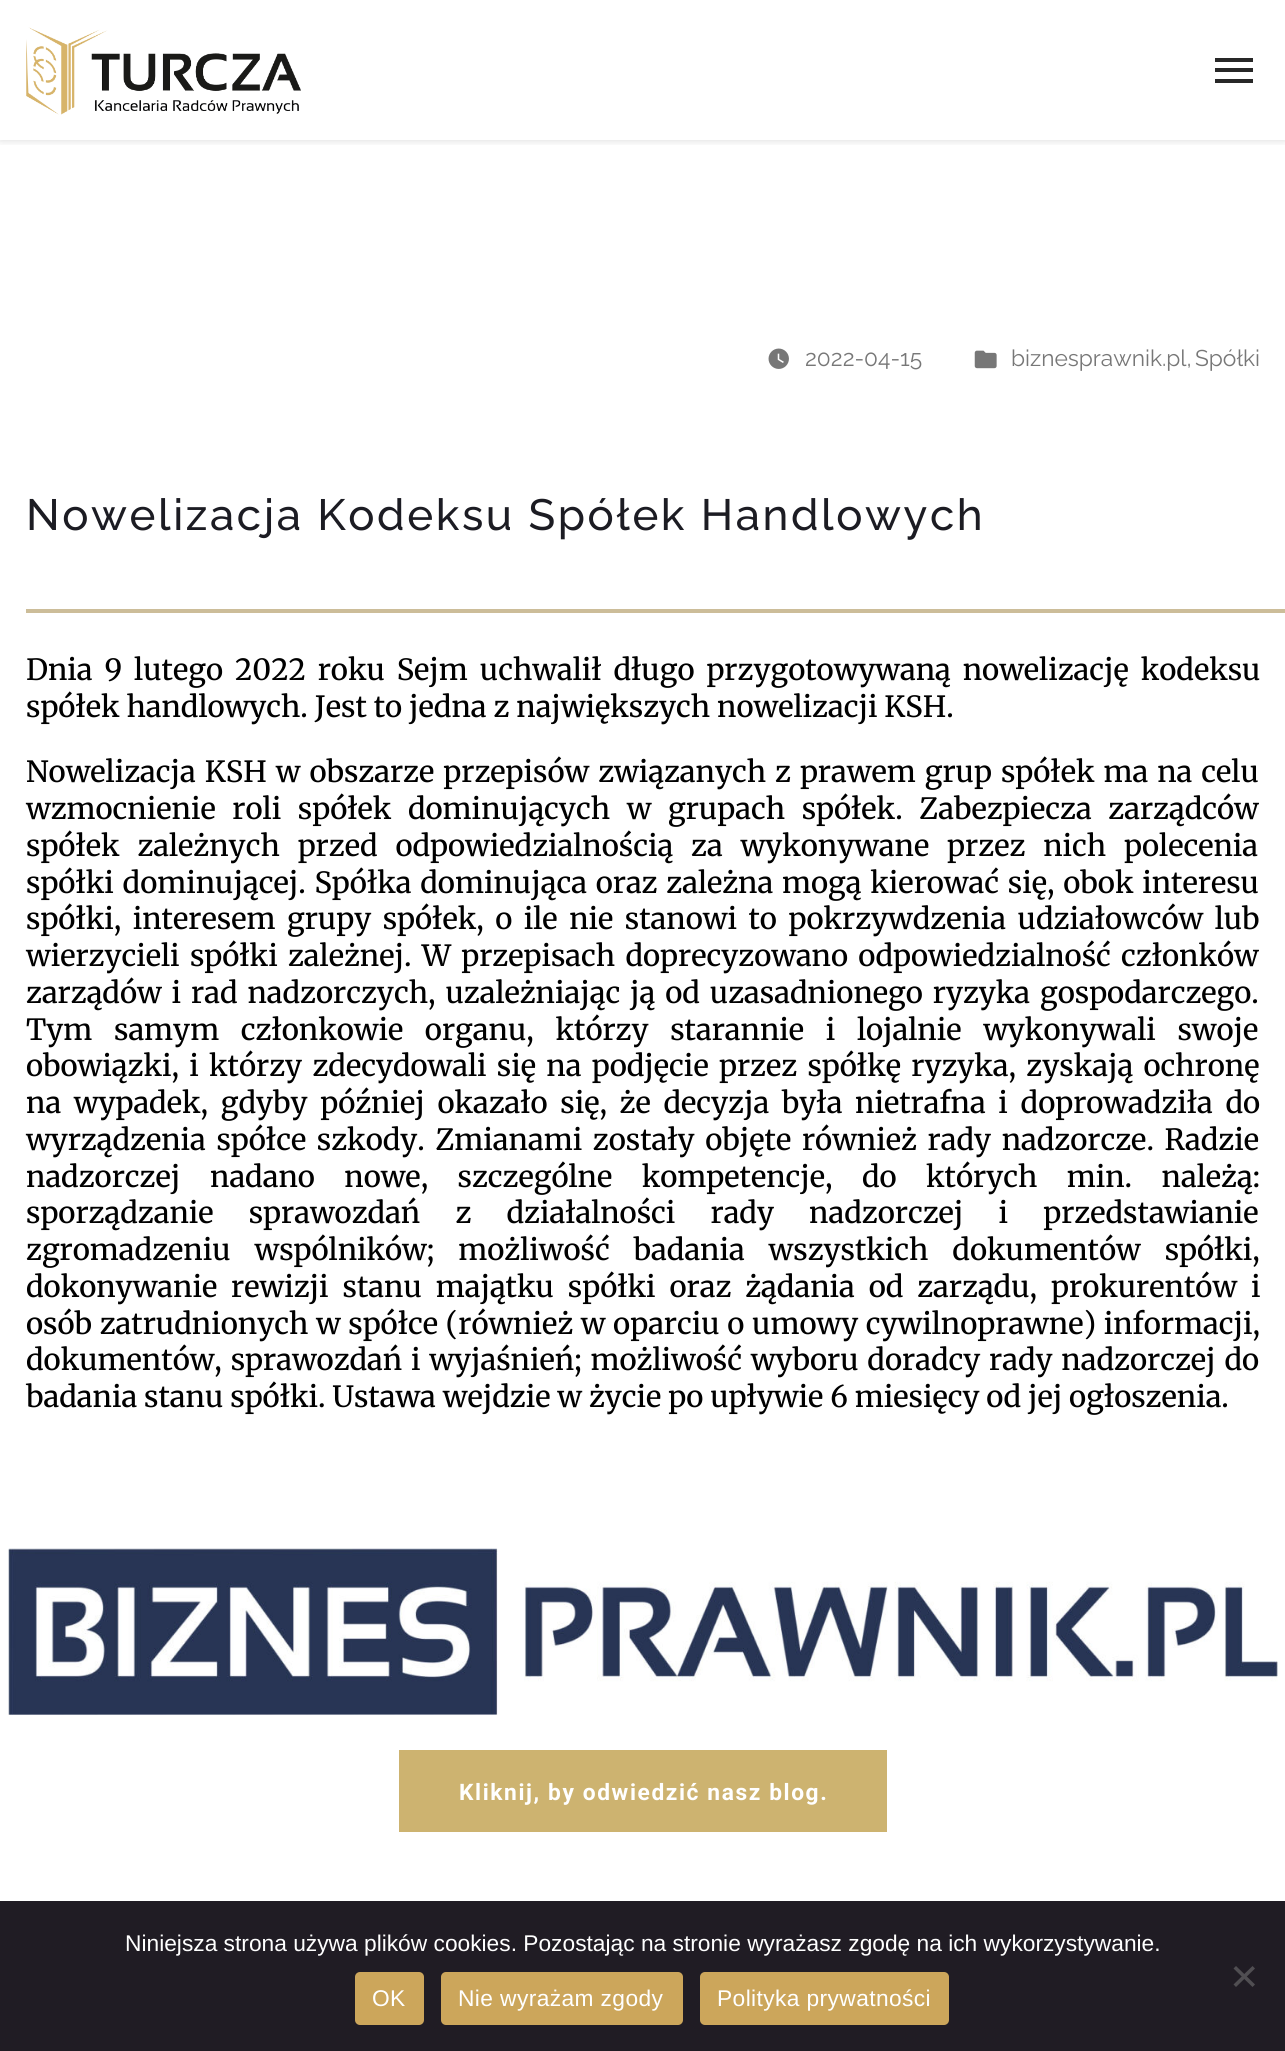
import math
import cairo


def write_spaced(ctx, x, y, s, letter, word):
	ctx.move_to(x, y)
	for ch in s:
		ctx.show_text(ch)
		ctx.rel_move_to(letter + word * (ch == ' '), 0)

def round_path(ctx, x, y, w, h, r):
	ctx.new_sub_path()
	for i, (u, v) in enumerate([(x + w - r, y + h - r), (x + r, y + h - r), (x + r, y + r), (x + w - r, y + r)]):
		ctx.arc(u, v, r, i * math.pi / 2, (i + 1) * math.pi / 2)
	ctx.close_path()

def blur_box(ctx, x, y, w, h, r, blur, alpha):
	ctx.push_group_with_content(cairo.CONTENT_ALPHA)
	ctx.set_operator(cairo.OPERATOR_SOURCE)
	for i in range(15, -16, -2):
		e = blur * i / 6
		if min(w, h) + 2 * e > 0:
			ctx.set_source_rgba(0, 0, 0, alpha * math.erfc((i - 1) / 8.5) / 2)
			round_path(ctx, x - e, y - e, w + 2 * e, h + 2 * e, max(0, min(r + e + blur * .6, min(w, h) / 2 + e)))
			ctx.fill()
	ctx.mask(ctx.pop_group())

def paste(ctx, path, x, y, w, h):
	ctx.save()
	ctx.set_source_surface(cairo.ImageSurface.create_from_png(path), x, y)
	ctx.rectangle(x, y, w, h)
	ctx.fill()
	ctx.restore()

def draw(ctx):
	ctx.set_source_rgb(1, 1, 1)
	ctx.paint()
	ctx.save()
	ctx.rectangle(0, 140, 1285, 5)
	ctx.clip()
	ctx.set_source_rgb(0, 0, 0)
	blur_box(ctx, 0, 0, 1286, 140, 0, 4.5, 0.15)
	ctx.restore()
	paste(ctx, 'media/1.png', 26, 27, 275, 88)
	ctx.set_source_rgb(0.157, 0.157, 0.157)
	ctx.rectangle(1215, 58, 38, 4)
	ctx.rectangle(1215, 68, 38, 4)
	ctx.rectangle(1215, 79, 38, 4)
	ctx.fill()
	paste(ctx, 'media/2.png', 768, 348, 21, 21)
	ctx.select_font_face('Raleway')
	ctx.set_font_size(22.75)
	ctx.set_source_rgb(0.467, 0.467, 0.467)
	ctx.move_to(805, 366)
	ctx.show_text('2022-04-15')
	paste(ctx, 'media/3.png', 974, 350, 23, 19)
	ctx.move_to(1011, 366)
	ctx.show_text('biznesprawnik.pl,')
	ctx.move_to(1195, 366)
	ctx.show_text('Spółki')
	ctx.select_font_face('Raleway Medium')
	ctx.set_font_size(43.75)
	ctx.set_source_rgb(0.11, 0.11, 0.137)
	write_spaced(ctx, 26, 530, 'Nowelizacja Kodeksu Spółek Handlowych', 2.6, 0)
	ctx.set_source_rgb(0.8, 0.741, 0.6)
	ctx.rectangle(26, 609, 1259, 4)
	ctx.fill()
	ctx.select_font_face('Merriweather Medium')
	ctx.set_font_size(29.15)
	ctx.set_source_rgb(0, 0, 0)
	write_spaced(ctx, 26, 680, 'Dnia 9 lutego 2022 roku Sejm uchwalił długo przygotowywaną nowelizację kodeksu', 0, 5)
	ctx.move_to(26, 717)
	ctx.show_text('spółek handlowych. Jest to jedna z największych nowelizacji KSH.')
	write_spaced(ctx, 26, 782, 'Nowelizacja KSH w obszarze przepisów związanych z prawem grup spółek ma na celu', 0, 2.1)
	write_spaced(ctx, 26, 819, 'wzmocnienie roli spółek dominujących w grupach spółek. Zabezpiecza zarządców', 0, 9.75)
	write_spaced(ctx, 26, 856, 'spółek zależnych przed odpowiedzialnością za wykonywane przez nich polecenia', 0, 11)
	write_spaced(ctx, 26, 893, 'spółki dominującej. Spółka dominująca oraz zależna mogą kierować się, obok interesu', 0, 1.9)
	write_spaced(ctx, 26, 929, 'spółki, interesem grupy spółek, o ile nie stanowi to pokrzywdzenia udziałowców lub', 0, 4.6)
	write_spaced(ctx, 26, 966, 'wierzycieli spółki zależnej. W przepisach doprecyzowano odpowiedzialność członków', 0, 3.4)
	write_spaced(ctx, 26, 1003, 'zarządów i rad nadzorczych, uzależniając ją od uzasadnionego ryzyka gospodarczego.', 0, 3)
	write_spaced(ctx, 26, 1040, 'Tym samym członkowie organu, którzy starannie i lojalnie wykonywali swoje', 0, 14.75)
	write_spaced(ctx, 26, 1076, 'obowiązki, i którzy zdecydowali się na podjęcie przez spółkę ryzyka, zyskają ochronę', 0, 3.4)
	write_spaced(ctx, 26, 1113, 'na wypadek, gdyby później okazało się, że decyzja była nietrafna i doprowadziła do', 0, 5.75)
	write_spaced(ctx, 26, 1150, 'wyrządzenia spółce szkody. Zmianami zostały objęte również rady nadzorcze. Radzie', 0, 3.75)
	ctx.move_to(26, 1187)
	ctx.show_text('nadzorczej')
	write_spaced(ctx, 210, 1187, 'nadano nowe, szczególne kompetencje, do których min. należą:', 0, 22.5)
	write_spaced(ctx, 26, 1223, 'sporządzanie sprawozdań z działalności rady nadzorczej i przedstawianie', 0, 28.25)
	write_spaced(ctx, 26, 1260, 'zgromadzeniu wspólników; możliwość badania wszystkich dokumentów spółki,', 0, 17)
	write_spaced(ctx, 26, 1297, 'dokonywanie rewizji stanu majątku spółki oraz żądania od zarządu, prokurentów i', 0, 7)
	write_spaced(ctx, 26, 1334, 'osób zatrudnionych w spółce (również w oparciu o umowy cywilnoprawne) informacji,', 0, 0.75)
	write_spaced(ctx, 26, 1370, 'dokumentów, sprawozdań i wyjaśnień; możliwość wyboru doradcy rady nadzorczej do', 0, 1.9)
	ctx.move_to(26, 1407)
	ctx.show_text('badania stanu spółki. Ustawa wejdzie w życie po upływie 6 miesięcy od jej ogłoszenia.')
	paste(ctx, 'media/4.png', 8, 1548, 1270, 167)
	ctx.set_source_rgb(0.804, 0.702, 0.439)
	ctx.rectangle(399, 1750, 488, 82)
	ctx.fill()
	ctx.select_font_face('Roboto', cairo.FONT_SLANT_NORMAL, cairo.FONT_WEIGHT_BOLD)
	ctx.set_font_size(22.75)
	ctx.set_source_rgb(1, 1, 1)
	write_spaced(ctx, 459, 1800, 'Kliknij, by odwiedzić nasz blog.', 1.6, 0)
	ctx.set_source_rgb(0.125, 0.11, 0.141)
	ctx.rectangle(0, 1901, 1285, 150)
	ctx.fill()
	ctx.select_font_face('Liberation Sans')
	ctx.set_source_rgb(1, 1, 1)
	ctx.move_to(125, 1951)
	ctx.show_text('Niniejsza strona używa plików cookies. Pozostając na stronie wyrażasz zgodę na ich wykorzystywanie.')
	ctx.set_source_rgb(0.314, 0.306, 0.322)
	ctx.new_path()
	ctx.move_to(1252.5, 1966)
	ctx.line_to(1255, 1968.5)
	ctx.line_to(1236, 1987)
	ctx.line_to(1233.5, 1984.5)
	ctx.close_path()
	ctx.fill()
	ctx.new_path()
	ctx.move_to(1233.5, 1968.5)
	ctx.line_to(1236, 1966)
	ctx.line_to(1255, 1984.5)
	ctx.line_to(1252.5, 1987)
	ctx.close_path()
	ctx.fill()
	ctx.set_source_rgb(0.8, 0.651, 0.357)
	round_path(ctx, 355, 1972, 69, 53, 5)
	ctx.fill()
	ctx.set_source_rgb(1, 1, 1)
	write_spaced(ctx, 372, 2006, 'OK', 0.4, 0)
	ctx.set_source_rgb(0.8, 0.651, 0.357)
	round_path(ctx, 441, 1972, 242, 53, 5)
	ctx.fill()
	ctx.set_source_rgb(1, 1, 1)
	write_spaced(ctx, 458, 2006, 'Nie wyrażam zgody', 0.4, 0)
	ctx.set_source_rgb(0.8, 0.651, 0.357)
	round_path(ctx, 700, 1972, 249, 53, 5)
	ctx.fill()
	ctx.set_source_rgb(1, 1, 1)
	write_spaced(ctx, 717, 2006, 'Polityka prywatności', 0.4, 0)


surface = cairo.ImageSurface(cairo.FORMAT_RGB24, 1285, 2051)
ctx = cairo.Context(surface)
options = cairo.FontOptions()
options.set_hint_metrics(cairo.HINT_METRICS_OFF)
options.set_hint_style(cairo.HINT_STYLE_NONE)
ctx.set_font_options(options)
ctx.set_miter_limit(4)
draw(ctx)
surface.write_to_png('image.png')
